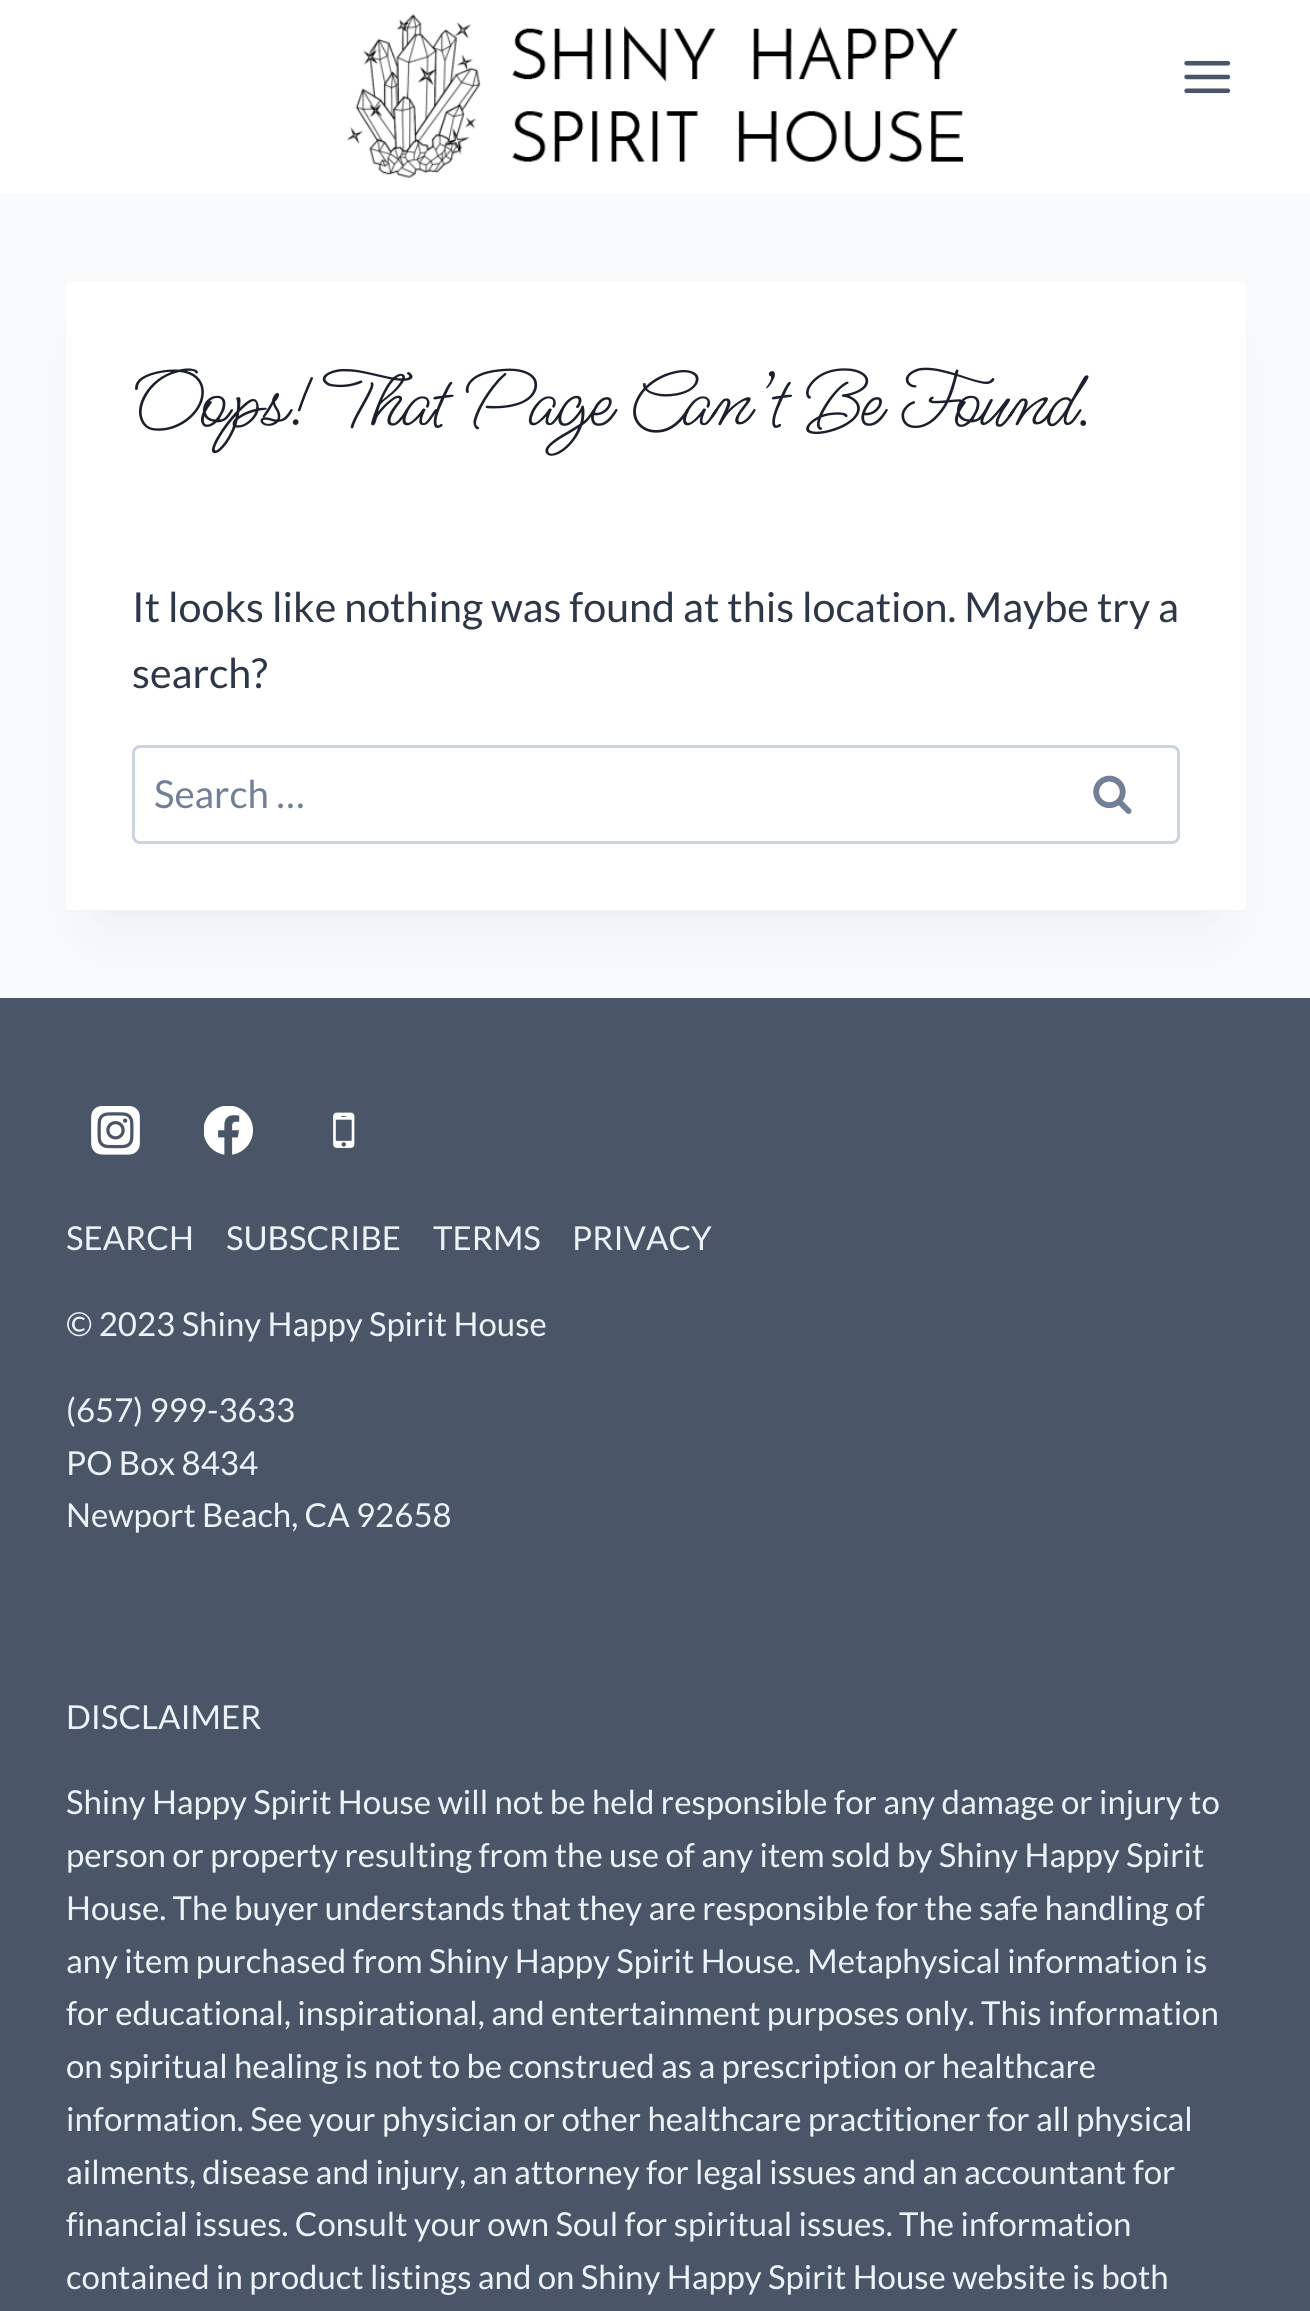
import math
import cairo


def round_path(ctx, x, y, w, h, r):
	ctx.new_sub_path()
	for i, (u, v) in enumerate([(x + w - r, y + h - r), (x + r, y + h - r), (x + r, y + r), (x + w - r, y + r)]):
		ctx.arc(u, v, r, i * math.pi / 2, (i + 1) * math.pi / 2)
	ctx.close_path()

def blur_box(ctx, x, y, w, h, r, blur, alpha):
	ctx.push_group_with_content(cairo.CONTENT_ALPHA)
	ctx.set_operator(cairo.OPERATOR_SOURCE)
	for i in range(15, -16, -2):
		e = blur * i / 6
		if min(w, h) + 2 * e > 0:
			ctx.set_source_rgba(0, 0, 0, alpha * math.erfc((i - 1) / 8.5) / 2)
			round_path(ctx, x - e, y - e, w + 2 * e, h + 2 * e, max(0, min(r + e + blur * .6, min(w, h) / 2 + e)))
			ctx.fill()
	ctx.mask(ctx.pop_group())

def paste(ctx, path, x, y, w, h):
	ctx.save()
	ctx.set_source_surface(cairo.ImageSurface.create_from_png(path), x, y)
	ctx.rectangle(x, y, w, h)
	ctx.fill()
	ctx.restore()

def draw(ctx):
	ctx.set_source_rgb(0.969, 0.98, 0.988)
	ctx.paint()
	ctx.set_source_rgb(1, 1, 1)
	ctx.rectangle(0, 0, 1310, 193)
	ctx.fill()
	paste(ctx, 'media/1.png', 346, 14, 618, 164)
	paste(ctx, 'media/2.png', 1184, 60, 47, 34)
	ctx.set_source_rgb(0.29, 0.333, 0.408)
	ctx.rectangle(0, 998, 1310, 1313)
	ctx.fill()
	ctx.set_source_rgb(0, 0, 0)
	blur_box(ctx, 94, 349, 1124, 575, 0, 34.5, 0.05)
	ctx.set_source_rgb(1, 1, 1)
	ctx.rectangle(66, 281, 1180, 629)
	ctx.fill()
	ctx.select_font_face('Ms Madi')
	ctx.set_font_size(82.5)
	ctx.set_source_rgb(0.102, 0.125, 0.173)
	ctx.move_to(132, 425)
	ctx.show_text('Oops! That Page Can’t Be Found.')
	ctx.select_font_face('Lato')
	ctx.set_font_size(41.25)
	ctx.set_source_rgb(0.176, 0.216, 0.282)
	ctx.move_to(132, 622)
	ctx.show_text('It looks like nothing was found at this location. Maybe try a')
	ctx.move_to(132, 688)
	ctx.show_text('search?')
	round_path(ctx, 133.5, 746.5, 1045, 96, 6.5)
	ctx.set_source_rgb(0.796, 0.835, 0.878)
	ctx.set_line_width(3)
	ctx.stroke()
	ctx.set_font_size(38.5)
	ctx.set_source_rgb(0.443, 0.502, 0.588)
	ctx.move_to(154, 808)
	ctx.show_text('Search …')
	paste(ctx, 'media/3.png', 1093, 775, 39, 39)
	paste(ctx, 'media/4.png', 91, 1106, 49, 49)
	paste(ctx, 'media/5.png', 204, 1106, 49, 49)
	paste(ctx, 'media/6.png', 333, 1112, 22, 36)
	ctx.set_font_size(33)
	ctx.set_source_rgb(0.929, 0.949, 0.969)
	for x, y, s in [
		(66, 1250, 'SEARCH'),
		(226, 1250, 'SUBSCRIBE'),
		(433, 1250, 'TERMS'),
		(572, 1250, 'PRIVACY'),
		(66, 1336, '© 2023 Shiny Happy Spirit House'),
		(66, 1422, '(657) 999-3633'),
		(66, 1475, 'PO Box 8434'),
		(66, 1527, 'Newport Beach, CA 92658'),
		(66, 1729, 'DISCLAIMER'),
		(66, 1814, 'Shiny Happy Spirit House will not be held responsible for any damage or injury to'),
		(66, 1867, 'person or property resulting from the use of any item sold by Shiny Happy Spirit'),
		(66, 1920, 'House. The buyer understands that they are responsible for the safe handling of'),
		(66, 1973, 'any item purchased from Shiny Happy Spirit House. Metaphysical information is'),
		(66, 2025, 'for educational, inspirational, and entertainment purposes only. This information'),
		(66, 2078, 'on spiritual healing is not to be construed as a prescription or healthcare'),
		(66, 2131, 'information. See your physician or other healthcare practitioner for all physical'),
		(66, 2184, 'ailments, disease and injury, an attorney for legal issues and an accountant for'),
		(66, 2236, 'financial issues. Consult your own Soul for spiritual issues. The information'),
		(66, 2289, 'contained in product listings and on Shiny Happy Spirit House website is both'),
	]:
		ctx.move_to(x, y)
		ctx.show_text(s)


surface = cairo.ImageSurface(cairo.FORMAT_RGB24, 1310, 2311)
ctx = cairo.Context(surface)
options = cairo.FontOptions()
options.set_hint_metrics(cairo.HINT_METRICS_OFF)
options.set_hint_style(cairo.HINT_STYLE_NONE)
ctx.set_font_options(options)
ctx.set_miter_limit(4)
draw(ctx)
surface.write_to_png('image.png')
